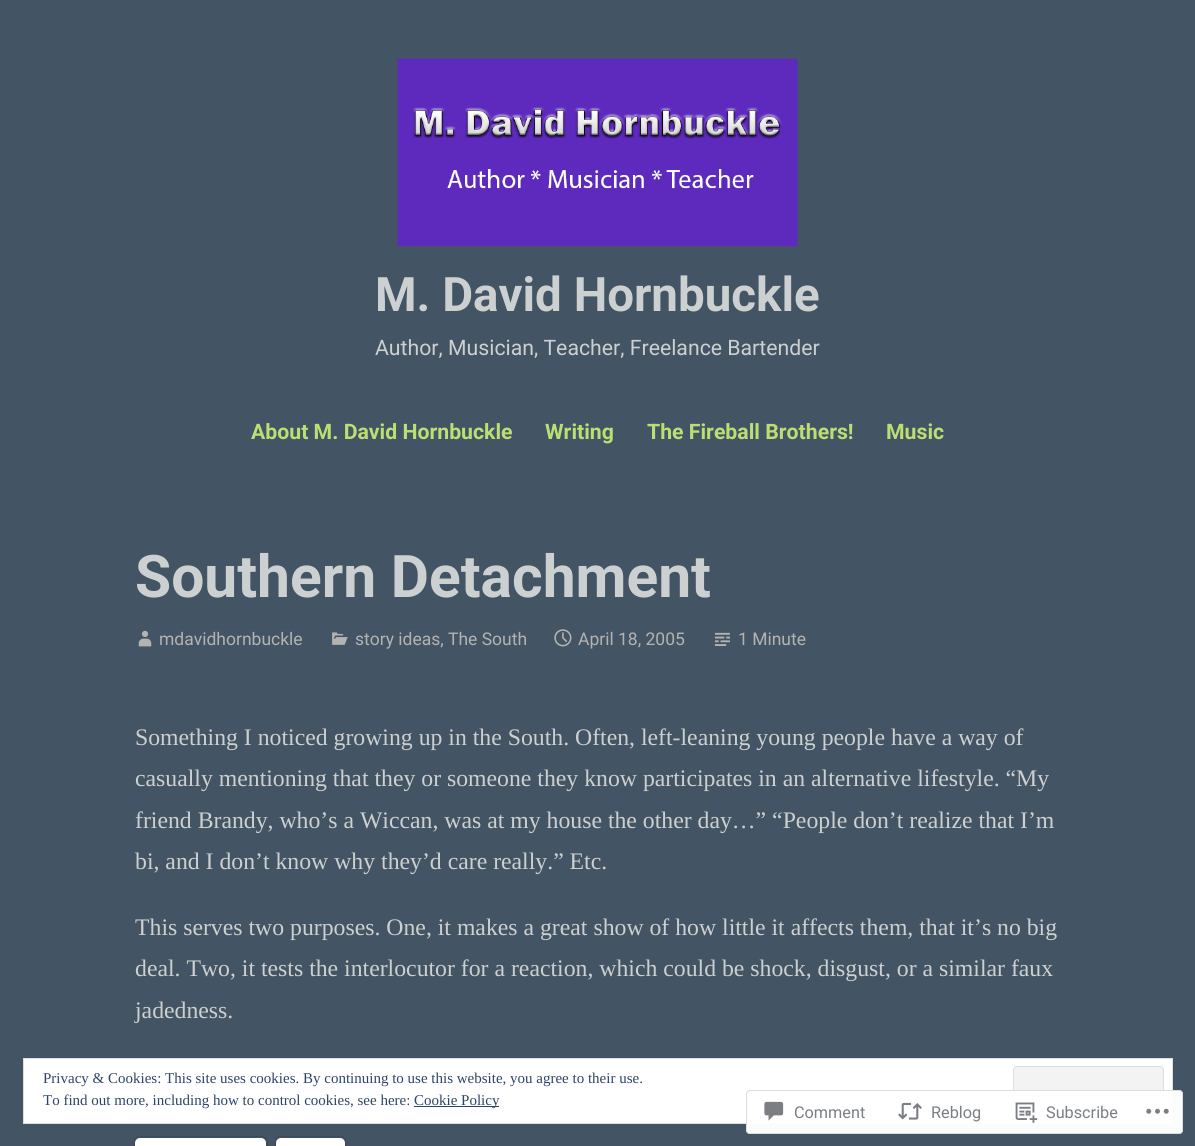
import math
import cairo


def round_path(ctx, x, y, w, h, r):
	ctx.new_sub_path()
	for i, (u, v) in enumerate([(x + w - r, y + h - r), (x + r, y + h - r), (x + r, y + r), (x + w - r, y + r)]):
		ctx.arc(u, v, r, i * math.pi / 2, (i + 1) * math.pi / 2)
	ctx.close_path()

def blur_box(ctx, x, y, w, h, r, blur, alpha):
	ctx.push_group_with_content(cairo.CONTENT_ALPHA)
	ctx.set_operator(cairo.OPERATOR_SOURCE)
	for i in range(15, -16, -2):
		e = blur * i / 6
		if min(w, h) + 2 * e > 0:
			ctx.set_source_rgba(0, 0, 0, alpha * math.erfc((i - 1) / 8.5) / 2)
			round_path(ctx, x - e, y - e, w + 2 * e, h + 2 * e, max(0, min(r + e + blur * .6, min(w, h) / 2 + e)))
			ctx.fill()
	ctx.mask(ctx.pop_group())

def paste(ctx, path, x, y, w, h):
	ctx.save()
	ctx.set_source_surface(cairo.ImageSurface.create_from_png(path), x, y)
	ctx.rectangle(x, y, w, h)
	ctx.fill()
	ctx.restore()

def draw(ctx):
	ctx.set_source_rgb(0.263, 0.329, 0.392)
	ctx.paint()
	paste(ctx, 'media/1.png', 397, 58, 401, 189)
	ctx.select_font_face('Roboto', cairo.FONT_SLANT_NORMAL, cairo.FONT_WEIGHT_BOLD)
	ctx.set_font_size(47.5)
	ctx.set_source_rgb(0.8, 0.816, 0.816)
	ctx.move_to(375, 311)
	ctx.show_text('M. David Hornbuckle')
	ctx.select_font_face('Roboto')
	ctx.set_font_size(21.25)
	ctx.move_to(375, 355)
	ctx.show_text('Author, Musician, Teacher, Freelance Bartender')
	ctx.select_font_face('Roboto', cairo.FONT_SLANT_NORMAL, cairo.FONT_WEIGHT_BOLD)
	ctx.set_source_rgb(0.737, 0.871, 0.447)
	for x, y, s in [
		(251, 439, 'About M. David Hornbuckle'),
		(545, 439, 'Writing'),
		(647, 439, 'The Fireball Brothers!'),
		(886, 439, 'Music'),
	]:
		ctx.move_to(x, y)
		ctx.show_text(s)
	ctx.set_font_size(58.75)
	ctx.set_source_rgb(0.8, 0.816, 0.816)
	ctx.move_to(135, 597)
	ctx.show_text('Southern Detachment')
	paste(ctx, 'media/2.png', 138, 630, 14, 17)
	ctx.select_font_face('Roboto')
	ctx.set_font_size(17.5)
	ctx.set_source_rgb(0.702, 0.702, 0.694)
	ctx.move_to(159, 645)
	ctx.show_text('mdavidhornbuckle')
	paste(ctx, 'media/3.png', 332, 632, 16, 13)
	ctx.move_to(355, 645)
	ctx.show_text('story ideas, The South')
	paste(ctx, 'media/4.png', 554, 629, 18, 18)
	ctx.move_to(578, 645)
	ctx.show_text('April 18, 2005')
	paste(ctx, 'media/5.png', 714, 632, 16, 14)
	ctx.move_to(738, 645)
	ctx.show_text('1 Minute')
	ctx.select_font_face('Liberation Serif')
	ctx.set_font_size(23.75)
	ctx.set_source_rgb(0.8, 0.816, 0.816)
	for x, y, s in [
		(135, 745, 'Something I noticed growing up in the South. Often, left-leaning young people have a way of'),
		(135, 786, 'casually mentioning that they or someone they know participates in an alternative lifestyle. “My'),
		(135, 828, 'friend Brandy, who’s a Wiccan, was at my house the other day…” “People don’t realize that I’m'),
		(135, 869, 'bi, and I don’t know why they’d care really.” Etc.'),
		(135, 935, 'This serves two purposes. One, it makes a great show of how little it affects them, that it’s no big'),
		(135, 976, 'deal. Two, it tests the interlocutor for a reaction, which could be shock, disgust, or a similar faux'),
		(135, 1018, 'jadedness.'),
	]:
		ctx.move_to(x, y)
		ctx.show_text(s)
	round_path(ctx, 134.5, 1136.5, 133, 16, 5.5)
	ctx.set_source_rgb(0.231, 0.29, 0.345)
	ctx.set_line_width(1)
	ctx.stroke()
	ctx.set_source_rgb(0, 0, 0)
	blur_box(ctx, 135, 1139, 131, 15, 5, 1, 0.12)
	ctx.set_source_rgb(1, 1, 1)
	round_path(ctx, 135, 1138, 131, 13, 5)
	ctx.fill()
	round_path(ctx, 275.5, 1136.5, 70, 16, 5.5)
	ctx.set_source_rgb(0.231, 0.29, 0.345)
	ctx.stroke()
	ctx.set_source_rgb(0, 0, 0)
	blur_box(ctx, 276, 1139, 69, 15, 5, 1, 0.12)
	ctx.set_source_rgb(1, 1, 1)
	round_path(ctx, 276, 1138, 69, 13, 5)
	ctx.fill()
	ctx.rectangle(23.5, 1058.5, 1149, 65)
	ctx.fill_preserve()
	ctx.set_source_rgb(0.871, 0.871, 0.871)
	ctx.stroke()
	ctx.set_font_size(15)
	ctx.set_source_rgb(0.18, 0.267, 0.404)
	ctx.move_to(43, 1083)
	ctx.show_text('Privacy & Cookies: This site uses cookies. By continuing to use this website, you agree to their use.')
	ctx.set_source_rgb(0.953, 0.953, 0.953)
	round_path(ctx, 1013.5, 1066.5, 150, 48, 3.5)
	ctx.fill_preserve()
	ctx.set_source_rgb(0.871, 0.871, 0.871)
	ctx.stroke()
	ctx.set_source_rgb(0.18, 0.267, 0.404)
	ctx.move_to(43, 1105)
	ctx.show_text('To find out more, including how to control cookies, see here:')
	ctx.rectangle(414, 1106, 85, 1)
	ctx.fill()
	ctx.move_to(414, 1105)
	ctx.show_text('Cookie Policy')
	ctx.set_source_rgba(1, 1, 1, 0.98)
	round_path(ctx, 746, 1090, 437, 44, 4)
	ctx.fill()
	round_path(ctx, 746.5, 1090.5, 436, 43, 3.5)
	ctx.set_source_rgba(0.863, 0.863, 0.871, 0.98)
	ctx.stroke()
	paste(ctx, 'media/6.png', 764, 1101, 20, 20)
	ctx.select_font_face('Roboto')
	ctx.set_font_size(16.25)
	ctx.set_source_rgb(0.482, 0.498, 0.522)
	ctx.move_to(794, 1118)
	ctx.show_text('Comment')
	paste(ctx, 'media/7.png', 898, 1102, 24, 18)
	ctx.move_to(931, 1118)
	ctx.show_text('Reblog')
	paste(ctx, 'media/8.png', 1015, 1102, 23, 21)
	ctx.move_to(1046, 1118)
	ctx.show_text('Subscribe')
	paste(ctx, 'media/9.png', 1146, 1108, 23, 6)


surface = cairo.ImageSurface(cairo.FORMAT_RGB24, 1195, 1146)
ctx = cairo.Context(surface)
options = cairo.FontOptions()
options.set_hint_metrics(cairo.HINT_METRICS_OFF)
options.set_hint_style(cairo.HINT_STYLE_NONE)
ctx.set_font_options(options)
ctx.set_miter_limit(4)
draw(ctx)
surface.write_to_png('image.png')
